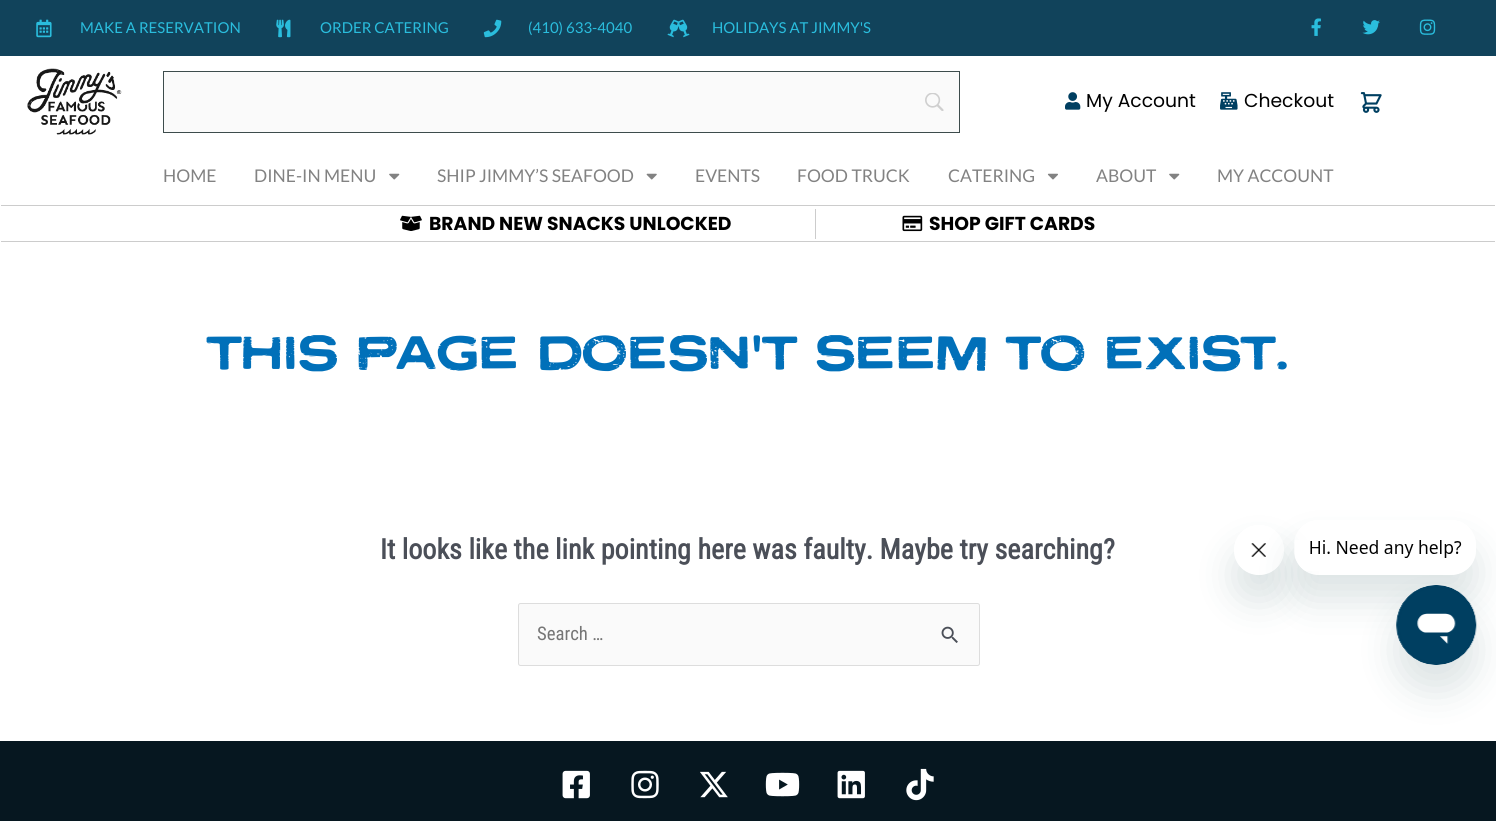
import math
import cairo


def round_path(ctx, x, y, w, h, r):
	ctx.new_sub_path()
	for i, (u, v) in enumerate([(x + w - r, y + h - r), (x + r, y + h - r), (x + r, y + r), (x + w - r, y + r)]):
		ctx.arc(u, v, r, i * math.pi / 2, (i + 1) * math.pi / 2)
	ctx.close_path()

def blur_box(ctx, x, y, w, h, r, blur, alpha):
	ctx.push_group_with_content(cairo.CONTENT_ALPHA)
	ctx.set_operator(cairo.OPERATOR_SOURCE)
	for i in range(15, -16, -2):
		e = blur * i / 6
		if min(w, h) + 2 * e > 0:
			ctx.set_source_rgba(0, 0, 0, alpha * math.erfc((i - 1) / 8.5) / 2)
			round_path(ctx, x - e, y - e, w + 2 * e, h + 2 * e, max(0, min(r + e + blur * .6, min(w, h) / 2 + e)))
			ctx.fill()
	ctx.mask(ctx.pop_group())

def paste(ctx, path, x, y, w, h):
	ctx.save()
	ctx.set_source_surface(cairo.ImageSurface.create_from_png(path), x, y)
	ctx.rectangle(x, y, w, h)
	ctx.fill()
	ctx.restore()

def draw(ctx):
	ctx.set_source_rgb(1, 1, 1)
	ctx.paint()
	ctx.set_source_rgb(0.067, 0.263, 0.357)
	ctx.rectangle(0, 0, 1496, 56)
	ctx.fill()
	paste(ctx, 'media/1.png', 36, 19, 16, 19)
	ctx.select_font_face('Lato')
	ctx.set_font_size(15)
	ctx.set_source_rgb(0.165, 0.741, 0.867)
	ctx.move_to(80, 33)
	ctx.show_text('MAKE A RESERVATION')
	paste(ctx, 'media/2.png', 276, 19, 15, 19)
	ctx.move_to(320, 33)
	ctx.show_text('ORDER CATERING')
	paste(ctx, 'media/3.png', 483, 19, 19, 19)
	ctx.move_to(528, 33)
	ctx.show_text('(410) 633-4040')
	paste(ctx, 'media/4.png', 667, 19, 23, 19)
	ctx.move_to(712, 33)
	ctx.show_text('HOLIDAYS AT JIMMY\'S')
	paste(ctx, 'media/5.png', 1311, 18, 10, 18)
	paste(ctx, 'media/6.png', 1362, 20, 18, 15)
	paste(ctx, 'media/7.png', 1419, 19, 17, 16)
	paste(ctx, 'media/8.png', 27, 68, 95, 67)
	ctx.set_source_rgb(0.98, 0.98, 0.98)
	ctx.rectangle(164, 72, 795, 60)
	ctx.fill()
	paste(ctx, 'media/9.png', 925, 93, 19, 18)
	ctx.rectangle(163.5, 71.5, 796, 61)
	ctx.set_source_rgb(0.239, 0.298, 0.298)
	ctx.set_line_width(1)
	ctx.stroke()
	paste(ctx, 'media/10.png', 1065, 92, 16, 18)
	ctx.select_font_face('Poppins')
	ctx.set_font_size(18.75)
	ctx.set_source_rgb(0, 0, 0)
	ctx.move_to(1086, 107)
	ctx.show_text('My Account')
	paste(ctx, 'media/11.png', 1220, 92, 18, 18)
	ctx.move_to(1244, 107)
	ctx.show_text('Checkout')
	paste(ctx, 'media/12.png', 1360, 92, 22, 21)
	ctx.select_font_face('Lato')
	ctx.set_font_size(17.5)
	ctx.set_source_rgb(0.51, 0.51, 0.51)
	ctx.move_to(163, 182)
	ctx.show_text('HOME')
	ctx.move_to(254, 182)
	ctx.show_text('DINE-IN MENU')
	paste(ctx, 'media/13.png', 389, 173, 11, 7)
	ctx.move_to(437, 182)
	ctx.show_text('SHIP JIMMY’S SEAFOOD')
	paste(ctx, 'media/14.png', 646, 173, 11, 7)
	for x, y, s in [
		(695, 182, 'EVENTS'),
		(797, 182, 'FOOD TRUCK'),
		(948, 182, 'CATERING'),
	]:
		ctx.move_to(x, y)
		ctx.show_text(s)
	paste(ctx, 'media/15.png', 1047, 173, 11, 7)
	ctx.move_to(1096, 182)
	ctx.show_text('ABOUT')
	paste(ctx, 'media/13.png', 1169, 173, 11, 7)
	ctx.move_to(1217, 182)
	ctx.show_text('MY ACCOUNT')
	ctx.set_source_rgb(0.8, 0.8, 0.8)
	ctx.rectangle(1, 205, 1494, 1)
	ctx.fill()
	ctx.rectangle(1, 241, 1494, 1)
	ctx.fill()
	paste(ctx, 'media/16.png', 400, 215, 22, 16)
	ctx.select_font_face('Poppins', cairo.FONT_SLANT_NORMAL, cairo.FONT_WEIGHT_BOLD)
	ctx.set_font_size(18.75)
	ctx.set_source_rgb(0, 0, 0)
	ctx.move_to(429, 230)
	ctx.show_text('BRAND NEW SNACKS UNLOCKED')
	ctx.set_source_rgb(0.8, 0.8, 0.8)
	ctx.rectangle(815, 209, 1, 30)
	ctx.fill()
	paste(ctx, 'media/17.png', 902, 215, 21, 17)
	ctx.set_source_rgb(0, 0, 0)
	ctx.move_to(929, 230)
	ctx.show_text('SHOP GIFT CARDS')
	ctx.select_font_face('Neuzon')
	ctx.set_font_size(50)
	ctx.set_source_rgb(0.004, 0.439, 0.725)
	ctx.move_to(207, 369)
	ctx.show_text('THIS PAGE DOESN\'T SEEM TO EXIST.')
	ctx.select_font_face('Roboto Condensed', cairo.FONT_SLANT_NORMAL, cairo.FONT_WEIGHT_BOLD)
	ctx.set_font_size(28.1)
	ctx.set_source_rgb(0.294, 0.31, 0.345)
	ctx.move_to(380, 559)
	ctx.show_text('It looks like the link pointing here was faulty. Maybe try searching?')
	ctx.set_source_rgb(0.98, 0.98, 0.98)
	round_path(ctx, 518.5, 603.5, 461, 62, 2)
	ctx.fill_preserve()
	ctx.set_source_rgb(0.867, 0.867, 0.867)
	ctx.stroke()
	ctx.select_font_face('Roboto Condensed')
	ctx.set_font_size(18.75)
	ctx.set_source_rgb(0.459, 0.459, 0.459)
	ctx.move_to(537, 640)
	ctx.show_text('Search …')
	paste(ctx, 'media/18.png', 941, 626, 17, 17)
	ctx.set_source_rgb(0.024, 0.09, 0.125)
	ctx.rectangle(0, 741, 1496, 80)
	ctx.fill()
	paste(ctx, 'media/19.png', 562, 770, 28, 29)
	paste(ctx, 'media/20.png', 631, 770, 28, 29)
	paste(ctx, 'media/21.png', 700, 771, 28, 27)
	paste(ctx, 'media/22.png', 765, 772, 35, 25)
	paste(ctx, 'media/23.png', 837, 770, 28, 29)
	paste(ctx, 'media/24.png', 906, 768, 28, 33)
	ctx.save()
	ctx.set_fill_rule(cairo.FILL_RULE_EVEN_ODD)
	ctx.new_path()
	ctx.move_to(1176, 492)
	ctx.line_to(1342, 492)
	ctx.line_to(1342, 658)
	ctx.line_to(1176, 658)
	ctx.close_path()
	ctx.move_to(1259, 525)
	ctx.curve_to(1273, 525, 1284, 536, 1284, 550)
	ctx.curve_to(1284, 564, 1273, 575, 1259, 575)
	ctx.curve_to(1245, 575, 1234, 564, 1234, 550)
	ctx.curve_to(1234, 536, 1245, 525, 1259, 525)
	ctx.close_path()
	ctx.clip()
	ctx.set_source_rgb(0.09, 0.286, 0.302)
	blur_box(ctx, 1234, 550, 50, 50, 25, 19, 0.15)
	ctx.restore()
	paste(ctx, 'media/26.png', 1251, 543, 15, 14)
	ctx.save()
	ctx.set_fill_rule(cairo.FILL_RULE_EVEN_ODD)
	ctx.new_path()
	ctx.move_to(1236, 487)
	ctx.line_to(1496, 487)
	ctx.line_to(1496, 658)
	ctx.line_to(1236, 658)
	ctx.close_path()
	ctx.move_to(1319, 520)
	ctx.line_to(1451, 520)
	ctx.curve_to(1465, 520, 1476, 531, 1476, 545)
	ctx.line_to(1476, 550)
	ctx.curve_to(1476, 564, 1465, 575, 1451, 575)
	ctx.line_to(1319, 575)
	ctx.curve_to(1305, 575, 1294, 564, 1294, 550)
	ctx.line_to(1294, 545)
	ctx.curve_to(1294, 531, 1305, 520, 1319, 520)
	ctx.close_path()
	ctx.clip()
	ctx.set_source_rgb(0.09, 0.286, 0.302)
	blur_box(ctx, 1294, 545, 182, 55, 25, 19, 0.15)
	ctx.restore()
	paste(ctx, 'media/25.png', 1295, 540, 167, 31)
	ctx.set_source_rgb(0.09, 0.286, 0.302)
	blur_box(ctx, 1396, 610, 80, 80, 40, 19, 0.15)
	paste(ctx, 'media/27.png', 1396, 585, 81, 80)


surface = cairo.ImageSurface(cairo.FORMAT_RGB24, 1496, 821)
ctx = cairo.Context(surface)
options = cairo.FontOptions()
options.set_hint_metrics(cairo.HINT_METRICS_OFF)
options.set_hint_style(cairo.HINT_STYLE_NONE)
ctx.set_font_options(options)
ctx.set_miter_limit(4)
draw(ctx)
surface.write_to_png('image.png')
